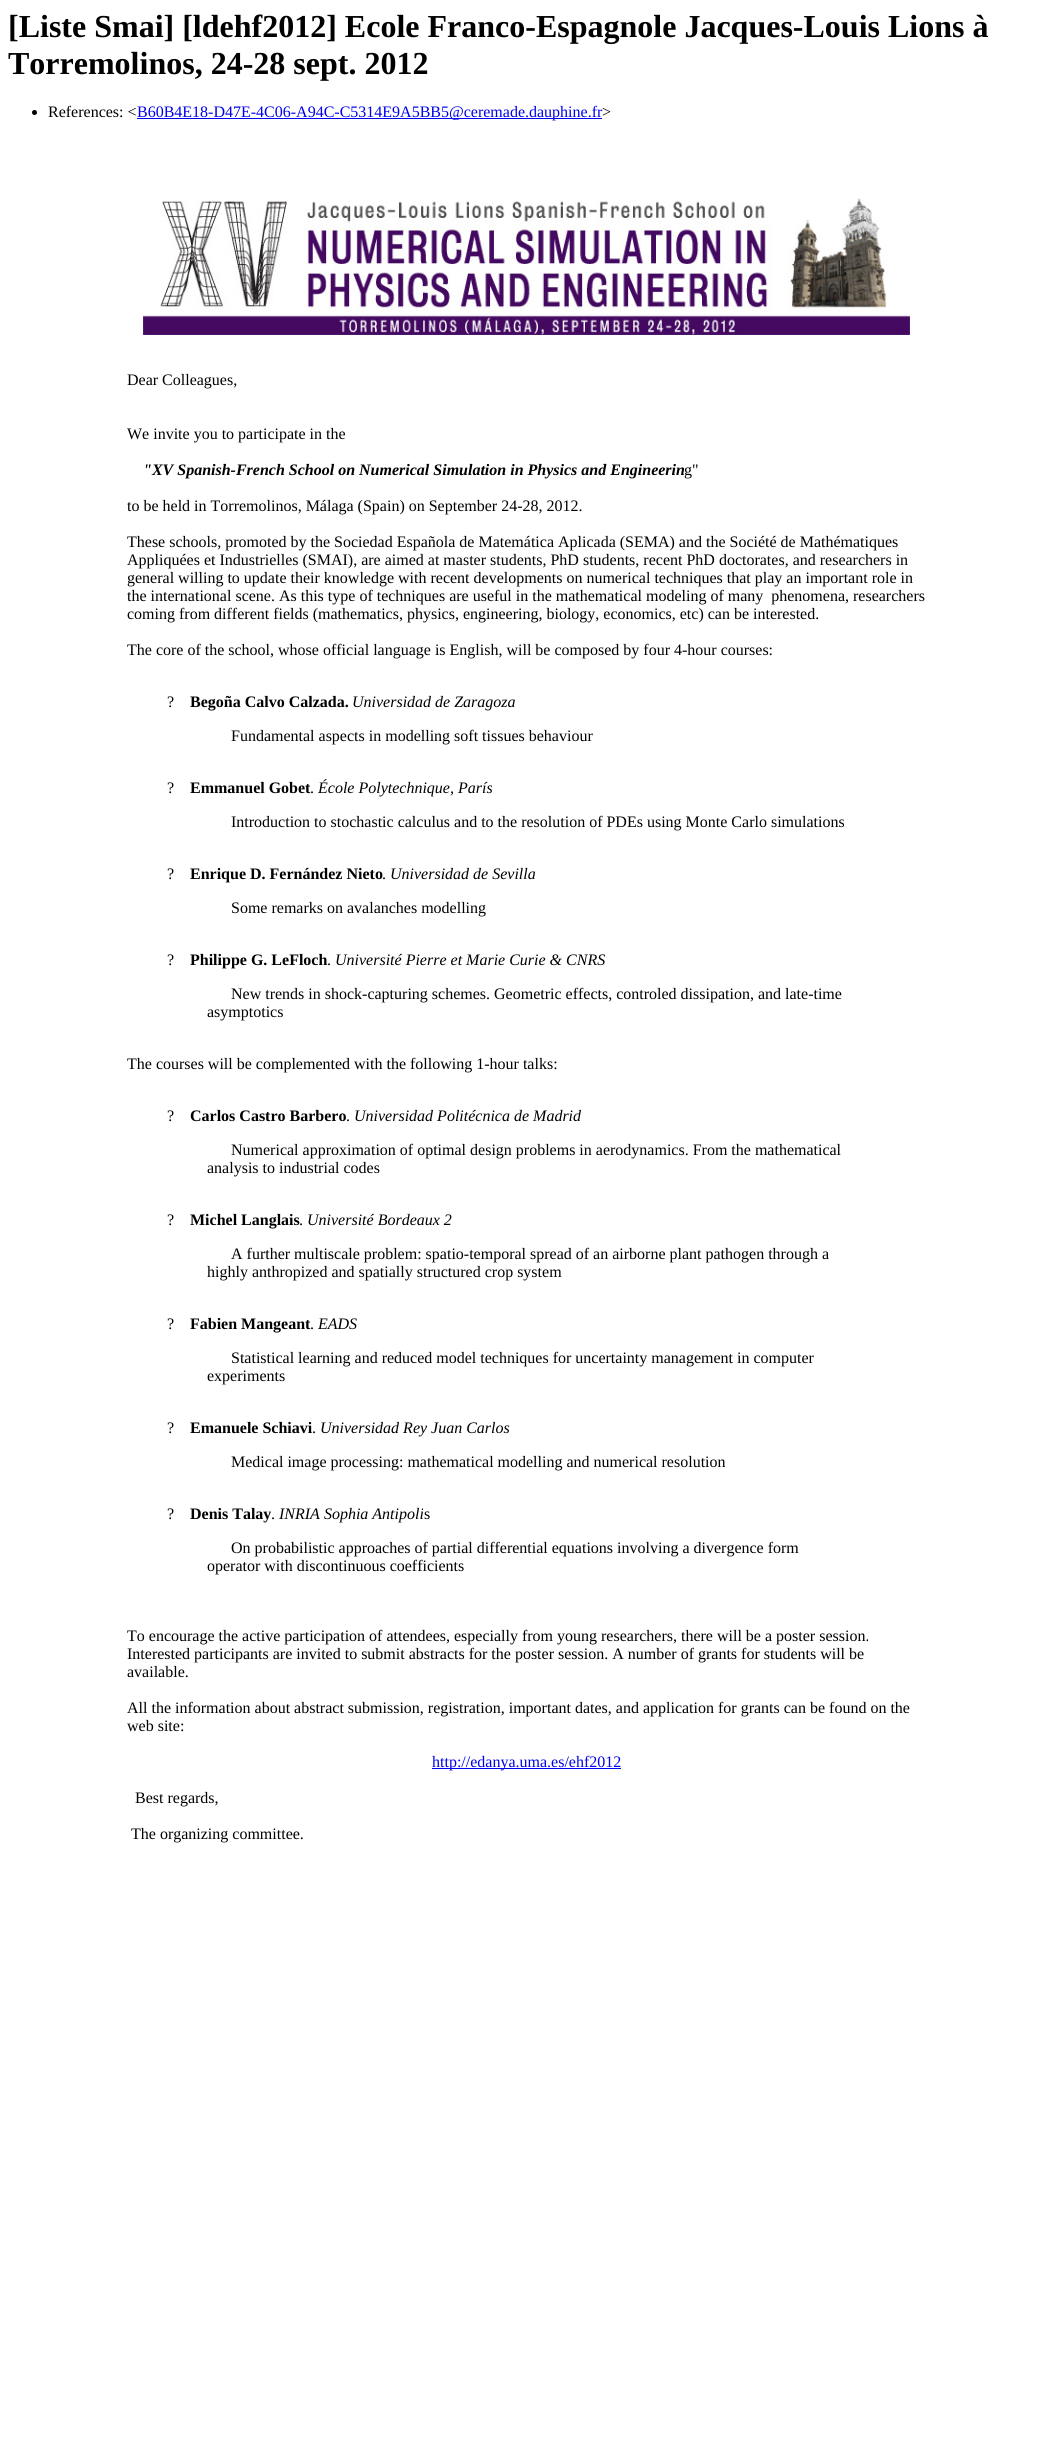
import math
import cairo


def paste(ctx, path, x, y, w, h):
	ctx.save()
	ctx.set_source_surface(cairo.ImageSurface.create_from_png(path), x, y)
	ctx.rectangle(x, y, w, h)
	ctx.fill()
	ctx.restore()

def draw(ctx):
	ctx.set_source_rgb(1, 1, 1)
	ctx.paint()
	ctx.select_font_face('Liberation Serif', cairo.FONT_SLANT_NORMAL, cairo.FONT_WEIGHT_BOLD)
	ctx.set_font_size(32)
	ctx.set_source_rgb(0, 0, 0)
	ctx.move_to(8, 37)
	ctx.show_text('[Liste Smai] [ldehf2012] Ecole Franco-Espagnole Jacques-Louis Lions à')
	ctx.move_to(8, 74)
	ctx.show_text('Torremolinos, 24-28 sept. 2012')
	ctx.new_path()
	ctx.arc(34.5, 112.5, 2.5, 0, 2 * math.pi)
	ctx.fill()
	ctx.select_font_face('Liberation Serif')
	ctx.set_font_size(16)
	ctx.move_to(48, 117)
	ctx.show_text('References: <')
	ctx.set_source_rgb(0, 0, 0.933)
	ctx.rectangle(137, 118, 465, 1)
	ctx.fill()
	ctx.move_to(137, 117)
	ctx.show_text('B60B4E18-D47E-4C06-A94C-C5314E9A5BB5@ceremade.dauphine.fr')
	ctx.set_source_rgb(0, 0, 0)
	ctx.move_to(602, 117)
	ctx.show_text('>')
	paste(ctx, 'media/1.png', 143, 198, 767, 137)
	ctx.move_to(127, 385)
	ctx.show_text('Dear Colleagues,')
	ctx.move_to(127, 439)
	ctx.show_text('We invite you to participate in the')
	ctx.select_font_face('Liberation Serif', cairo.FONT_SLANT_ITALIC, cairo.FONT_WEIGHT_BOLD)
	ctx.move_to(143, 475)
	ctx.show_text('"XV Spanish-French School on Numerical Simulation in Physics and Engineerin')
	ctx.select_font_face('Liberation Serif')
	for x, y, s in [
		(684, 475, 'g"'),
		(127, 511, 'to be held in Torremolinos, Málaga (Spain) on September 24-28, 2012.'),
		(127, 547, 'These schools, promoted by the Sociedad Española de Matemática Aplicada (SEMA) and the Société de Mathématiques'),
		(127, 565, 'Appliquées et Industrielles (SMAI), are aimed at master students, PhD students, recent PhD doctorates, and researchers in'),
		(127, 583, 'general willing to update their knowledge with recent developments on numerical techniques that play an important role in'),
		(127, 601, 'the international scene. As this type of techniques are useful in the mathematical modeling of many  phenomena, researchers'),
		(127, 619, 'coming from different fields (mathematics, physics, engineering, biology, economics, etc) can be interested.'),
		(127, 655, 'The core of the school, whose official language is English, will be composed by four 4-hour courses:'),
		(167, 707, '?'),
	]:
		ctx.move_to(x, y)
		ctx.show_text(s)
	ctx.select_font_face('Liberation Serif', cairo.FONT_SLANT_NORMAL, cairo.FONT_WEIGHT_BOLD)
	ctx.move_to(190, 707)
	ctx.show_text('Begoña Calvo Calzada.')
	ctx.select_font_face('Liberation Serif', cairo.FONT_SLANT_ITALIC)
	ctx.move_to(352, 707)
	ctx.show_text('Universidad de Zaragoza')
	ctx.select_font_face('Liberation Serif')
	ctx.move_to(231, 741)
	ctx.show_text('Fundamental aspects in modelling soft tissues behaviour')
	ctx.move_to(167, 793)
	ctx.show_text('?')
	ctx.select_font_face('Liberation Serif', cairo.FONT_SLANT_NORMAL, cairo.FONT_WEIGHT_BOLD)
	ctx.move_to(190, 793)
	ctx.show_text('Emmanuel Gobet')
	ctx.select_font_face('Liberation Serif')
	ctx.move_to(310, 793)
	ctx.show_text('.')
	ctx.select_font_face('Liberation Serif', cairo.FONT_SLANT_ITALIC)
	ctx.move_to(318, 793)
	ctx.show_text('École Polytechnique, París')
	ctx.select_font_face('Liberation Serif')
	ctx.move_to(231, 827)
	ctx.show_text('Introduction to stochastic calculus and to the resolution of PDEs using Monte Carlo simulations')
	ctx.move_to(167, 879)
	ctx.show_text('?')
	ctx.select_font_face('Liberation Serif', cairo.FONT_SLANT_NORMAL, cairo.FONT_WEIGHT_BOLD)
	ctx.move_to(190, 879)
	ctx.show_text('Enrique D. Fernández Nieto')
	ctx.select_font_face('Liberation Serif')
	ctx.move_to(382, 879)
	ctx.show_text('.')
	ctx.select_font_face('Liberation Serif', cairo.FONT_SLANT_ITALIC)
	ctx.move_to(390, 879)
	ctx.show_text('Universidad de Sevilla')
	ctx.select_font_face('Liberation Serif')
	ctx.move_to(231, 913)
	ctx.show_text('Some remarks on avalanches modelling')
	ctx.move_to(167, 965)
	ctx.show_text('?')
	ctx.select_font_face('Liberation Serif', cairo.FONT_SLANT_NORMAL, cairo.FONT_WEIGHT_BOLD)
	ctx.move_to(190, 965)
	ctx.show_text('Philippe G. LeFloch')
	ctx.select_font_face('Liberation Serif')
	ctx.move_to(327, 965)
	ctx.show_text('.')
	ctx.select_font_face('Liberation Serif', cairo.FONT_SLANT_ITALIC)
	ctx.move_to(335, 965)
	ctx.show_text('Université Pierre et Marie Curie & CNRS')
	ctx.select_font_face('Liberation Serif')
	for x, y, s in [
		(231, 999, 'New trends in shock-capturing schemes. Geometric effects, controled dissipation, and late-time'),
		(207, 1017, 'asymptotics'),
		(127, 1069, 'The courses will be complemented with the following 1-hour talks:'),
		(167, 1121, '?'),
	]:
		ctx.move_to(x, y)
		ctx.show_text(s)
	ctx.select_font_face('Liberation Serif', cairo.FONT_SLANT_NORMAL, cairo.FONT_WEIGHT_BOLD)
	ctx.move_to(190, 1121)
	ctx.show_text('Carlos Castro Barbero')
	ctx.select_font_face('Liberation Serif')
	ctx.move_to(346, 1121)
	ctx.show_text('.')
	ctx.select_font_face('Liberation Serif', cairo.FONT_SLANT_ITALIC)
	ctx.move_to(354, 1121)
	ctx.show_text('Universidad Politécnica de Madrid')
	ctx.select_font_face('Liberation Serif')
	for x, y, s in [
		(231, 1155, 'Numerical approximation of optimal design problems in aerodynamics. From the mathematical'),
		(207, 1173, 'analysis to industrial codes'),
		(167, 1225, '?'),
	]:
		ctx.move_to(x, y)
		ctx.show_text(s)
	ctx.select_font_face('Liberation Serif', cairo.FONT_SLANT_NORMAL, cairo.FONT_WEIGHT_BOLD)
	ctx.move_to(190, 1225)
	ctx.show_text('Michel Langlais')
	ctx.select_font_face('Liberation Serif')
	ctx.move_to(299, 1225)
	ctx.show_text('.')
	ctx.select_font_face('Liberation Serif', cairo.FONT_SLANT_ITALIC)
	ctx.move_to(307, 1225)
	ctx.show_text('Université Bordeaux 2')
	ctx.select_font_face('Liberation Serif')
	for x, y, s in [
		(231, 1259, 'A further multiscale problem: spatio-temporal spread of an airborne plant pathogen through a'),
		(207, 1277, 'highly anthropized and spatially structured crop system'),
		(167, 1329, '?'),
	]:
		ctx.move_to(x, y)
		ctx.show_text(s)
	ctx.select_font_face('Liberation Serif', cairo.FONT_SLANT_NORMAL, cairo.FONT_WEIGHT_BOLD)
	ctx.move_to(190, 1329)
	ctx.show_text('Fabien Mangeant')
	ctx.select_font_face('Liberation Serif')
	ctx.move_to(310, 1329)
	ctx.show_text('.')
	ctx.select_font_face('Liberation Serif', cairo.FONT_SLANT_ITALIC)
	ctx.move_to(318, 1329)
	ctx.show_text('EADS')
	ctx.select_font_face('Liberation Serif')
	for x, y, s in [
		(231, 1363, 'Statistical learning and reduced model techniques for uncertainty management in computer'),
		(207, 1381, 'experiments'),
		(167, 1433, '?'),
	]:
		ctx.move_to(x, y)
		ctx.show_text(s)
	ctx.select_font_face('Liberation Serif', cairo.FONT_SLANT_NORMAL, cairo.FONT_WEIGHT_BOLD)
	ctx.move_to(190, 1433)
	ctx.show_text('Emanuele Schiavi')
	ctx.select_font_face('Liberation Serif')
	ctx.move_to(312, 1433)
	ctx.show_text('.')
	ctx.select_font_face('Liberation Serif', cairo.FONT_SLANT_ITALIC)
	ctx.move_to(320, 1433)
	ctx.show_text('Universidad Rey Juan Carlos')
	ctx.select_font_face('Liberation Serif')
	ctx.move_to(231, 1467)
	ctx.show_text('Medical image processing: mathematical modelling and numerical resolution')
	ctx.move_to(167, 1519)
	ctx.show_text('?')
	ctx.select_font_face('Liberation Serif', cairo.FONT_SLANT_NORMAL, cairo.FONT_WEIGHT_BOLD)
	ctx.move_to(190, 1519)
	ctx.show_text('Denis Talay')
	ctx.select_font_face('Liberation Serif')
	ctx.move_to(271, 1519)
	ctx.show_text('.')
	ctx.select_font_face('Liberation Serif', cairo.FONT_SLANT_ITALIC)
	ctx.move_to(279, 1519)
	ctx.show_text('INRIA Sophia Antipoli')
	ctx.select_font_face('Liberation Serif')
	for x, y, s in [
		(424, 1519, 's'),
		(231, 1553, 'On probabilistic approaches of partial differential equations involving a divergence form'),
		(207, 1571, 'operator with discontinuous coefficients'),
		(127, 1641, 'To encourage the active participation of attendees, especially from young researchers, there will be a poster session.'),
		(127, 1659, 'Interested participants are invited to submit abstracts for the poster session. A number of grants for students will be'),
		(127, 1677, 'available.'),
		(127, 1713, 'All the information about abstract submission, registration, important dates, and application for grants can be found on the'),
		(127, 1731, 'web site:'),
	]:
		ctx.move_to(x, y)
		ctx.show_text(s)
	ctx.set_source_rgb(0, 0, 0.933)
	ctx.rectangle(432, 1768, 189, 1)
	ctx.fill()
	ctx.move_to(432, 1767)
	ctx.show_text('http://edanya.uma.es/ehf2012')
	ctx.set_source_rgb(0, 0, 0)
	ctx.move_to(135, 1803)
	ctx.show_text('Best regards,')
	ctx.move_to(131, 1839)
	ctx.show_text('The organizing committee.')


surface = cairo.ImageSurface(cairo.FORMAT_RGB24, 1053, 2445)
ctx = cairo.Context(surface)
options = cairo.FontOptions()
options.set_hint_metrics(cairo.HINT_METRICS_OFF)
options.set_hint_style(cairo.HINT_STYLE_NONE)
ctx.set_font_options(options)
ctx.set_miter_limit(4)
draw(ctx)
surface.write_to_png('image.png')
